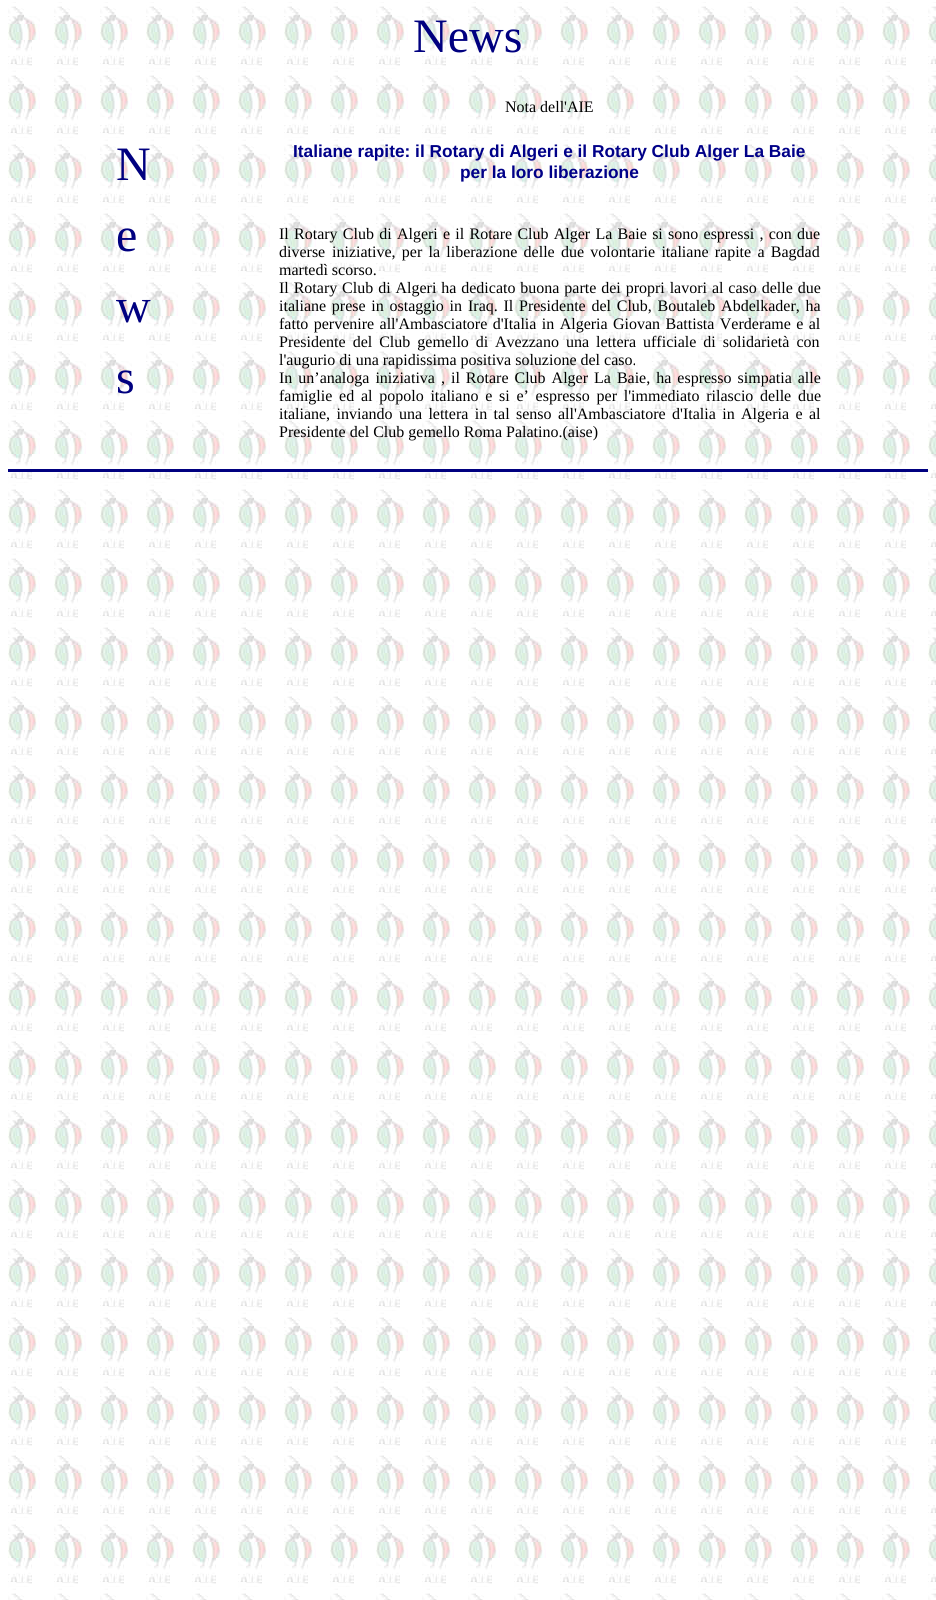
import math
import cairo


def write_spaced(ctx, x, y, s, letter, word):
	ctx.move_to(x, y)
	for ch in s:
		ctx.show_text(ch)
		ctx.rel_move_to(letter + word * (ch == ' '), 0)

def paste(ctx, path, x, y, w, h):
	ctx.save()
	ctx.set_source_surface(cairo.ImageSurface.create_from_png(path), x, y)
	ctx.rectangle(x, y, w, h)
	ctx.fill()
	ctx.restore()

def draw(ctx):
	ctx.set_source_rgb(1, 1, 1)
	ctx.paint()
	paste(ctx, 'media/1.png', 8, 2, 928, 1598)
	ctx.select_font_face('Liberation Serif')
	ctx.set_font_size(48)
	ctx.set_source_rgb(0, 0, 0.502)
	ctx.move_to(413, 52)
	ctx.show_text('News')
	ctx.set_font_size(16)
	ctx.set_source_rgb(0, 0, 0)
	ctx.move_to(505, 112)
	ctx.show_text('Nota dell\'AIE')
	ctx.set_font_size(48)
	ctx.set_source_rgb(0, 0, 0.502)
	for x, y, s in [
		(116, 180, 'N'),
		(116, 251, 'e'),
		(116, 322, 'w'),
		(116, 393, 's'),
	]:
		ctx.move_to(x, y)
		ctx.show_text(s)
	ctx.select_font_face('Liberation Sans', cairo.FONT_SLANT_NORMAL, cairo.FONT_WEIGHT_BOLD)
	ctx.set_font_size(17.3)
	ctx.set_source_rgb(0, 0, 0.533)
	ctx.move_to(293, 157)
	ctx.show_text('Italiane rapite: il Rotary di Algeri e il Rotary Club Alger La Baie')
	ctx.move_to(460, 178)
	ctx.show_text('per la loro liberazione')
	ctx.select_font_face('Liberation Serif')
	ctx.set_font_size(16)
	ctx.set_source_rgb(0, 0, 0)
	write_spaced(ctx, 279, 239, 'Il Rotary Club di Algeri e il Rotare Club Alger La Baie si sono espressi , con due', 0, 1.25)
	ctx.move_to(279, 257)
	ctx.show_text('diverse')
	write_spaced(ctx, 332, 257, 'iniziative, per la liberazione delle due volontarie italiane rapite a Bagdad', 0, 2.25)
	ctx.move_to(279, 275)
	ctx.show_text('martedì scorso.')
	write_spaced(ctx, 279, 293, 'Il Rotary Club di Algeri ha dedicato buona parte dei propri lavori al caso delle due', 0, 0.9)
	write_spaced(ctx, 279, 311, 'italiane prese in ostaggio in', 0, 1.75)
	write_spaced(ctx, 468, 311, 'Iraq. Il Presidente del Club, Boutaleb Abdelkader, ha', 0, 1.75)
	write_spaced(ctx, 279, 329, 'fatto pervenire all\'Ambasciatore d\'Italia in Algeria Giovan Battista Verderame e al', 0, 1.4)
	write_spaced(ctx, 279, 347, 'Presidente del Club gemello di', 0, 3)
	write_spaced(ctx, 495, 347, 'Avezzano una lettera ufficiale di solidarietà con', 0, 3)
	ctx.move_to(279, 365)
	ctx.show_text('l\'augurio di una rapidissima positiva soluzione del caso.')
	write_spaced(ctx, 279, 383, 'In un’analoga iniziativa , il Rotare Club Alger La Baie, ha espresso simpatia alle', 0, 2)
	write_spaced(ctx, 279, 401, 'famiglie ed al popolo italiano e si e’ espresso per l\'immediato rilascio delle due', 0, 2.75)
	write_spaced(ctx, 279, 419, 'italiane, inviando una lettera in tal senso all\'Ambasciatore d\'Italia in Algeria e al', 0, 2.4)
	ctx.move_to(279, 437)
	ctx.show_text('Presidente del Club gemello Roma Palatino.(aise)')
	ctx.set_source_rgb(0, 0, 0.502)
	ctx.rectangle(8, 469, 920, 3)
	ctx.fill()


surface = cairo.ImageSurface(cairo.FORMAT_RGB24, 936, 1600)
ctx = cairo.Context(surface)
options = cairo.FontOptions()
options.set_hint_metrics(cairo.HINT_METRICS_OFF)
options.set_hint_style(cairo.HINT_STYLE_NONE)
ctx.set_font_options(options)
ctx.set_miter_limit(4)
draw(ctx)
surface.write_to_png('image.png')
